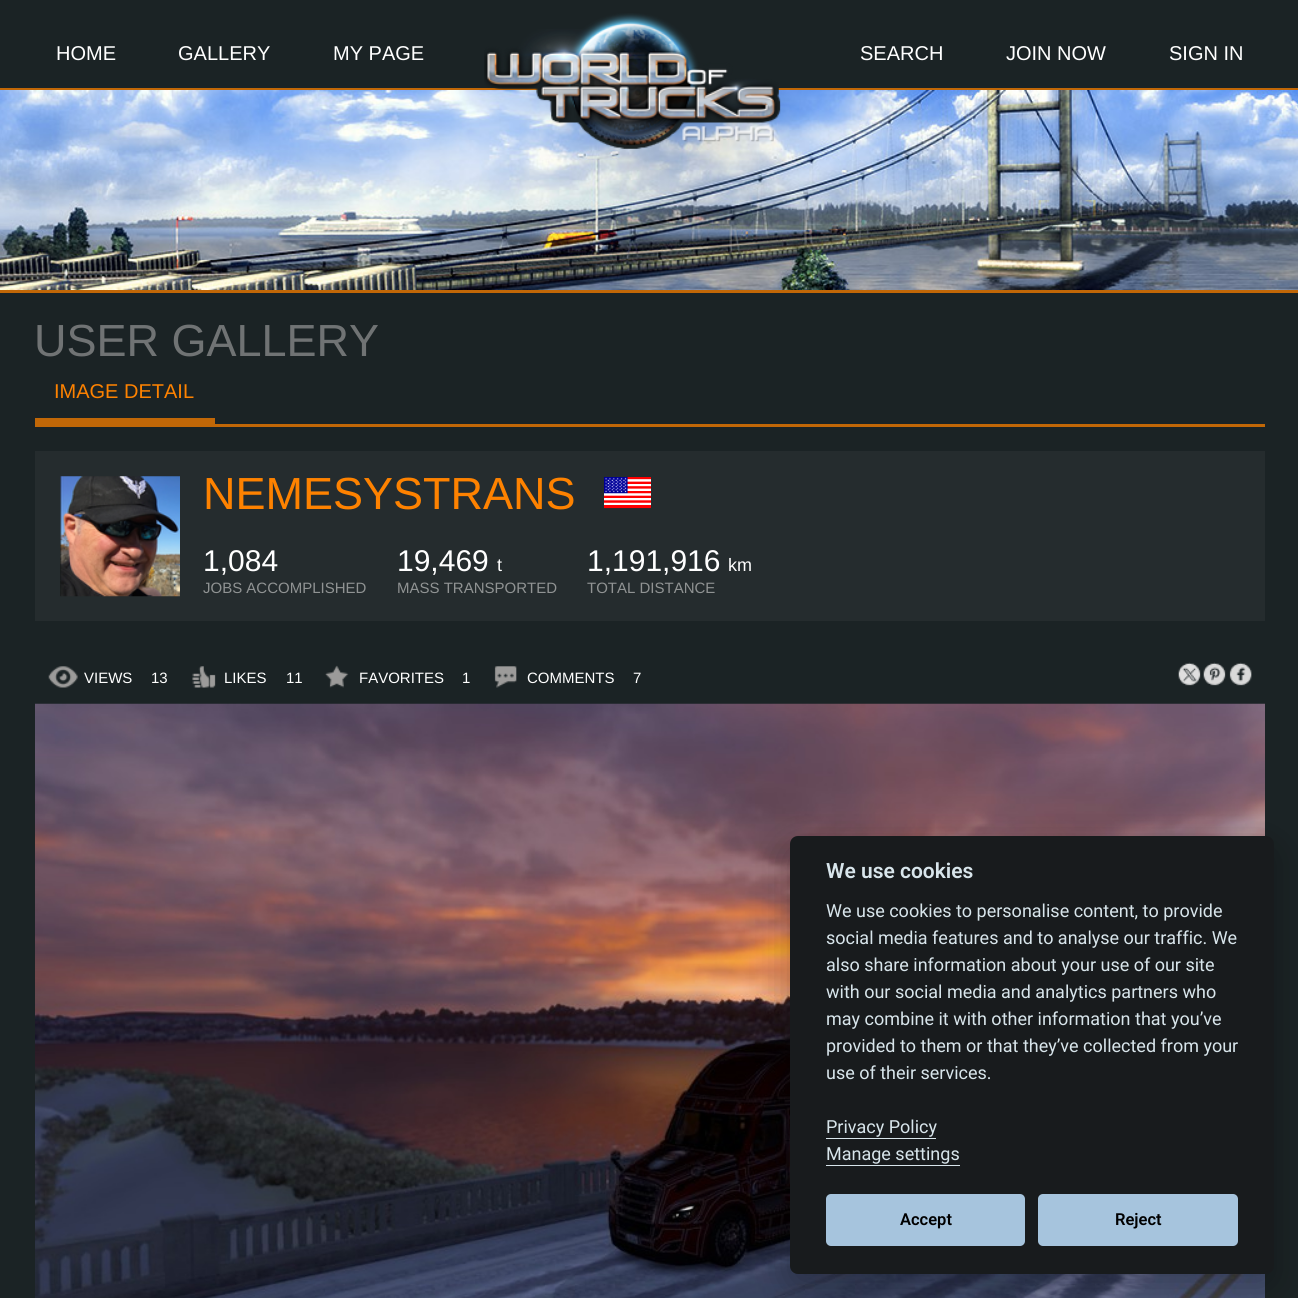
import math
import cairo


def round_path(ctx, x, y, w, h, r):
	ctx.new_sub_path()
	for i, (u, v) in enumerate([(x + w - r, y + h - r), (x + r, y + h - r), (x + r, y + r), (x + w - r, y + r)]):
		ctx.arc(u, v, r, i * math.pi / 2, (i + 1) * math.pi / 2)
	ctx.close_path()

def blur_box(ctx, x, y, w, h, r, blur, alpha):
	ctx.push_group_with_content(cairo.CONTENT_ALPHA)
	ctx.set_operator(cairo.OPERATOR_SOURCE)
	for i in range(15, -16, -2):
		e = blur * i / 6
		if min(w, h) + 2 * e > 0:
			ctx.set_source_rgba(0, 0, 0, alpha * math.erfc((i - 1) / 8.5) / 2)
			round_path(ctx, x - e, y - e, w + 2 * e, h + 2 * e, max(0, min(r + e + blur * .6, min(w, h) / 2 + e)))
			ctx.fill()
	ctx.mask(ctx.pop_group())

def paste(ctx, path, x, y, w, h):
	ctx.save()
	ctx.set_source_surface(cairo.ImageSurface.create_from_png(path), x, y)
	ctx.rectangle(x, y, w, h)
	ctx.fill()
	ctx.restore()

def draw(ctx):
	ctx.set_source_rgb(0.106, 0.137, 0.145)
	ctx.paint()
	ctx.set_source_rgb(0.757, 0.404, 0.031)
	ctx.rectangle(0, 88, 1298, 2)
	ctx.fill()
	ctx.select_font_face('Liberation Sans')
	ctx.set_font_size(20)
	ctx.set_source_rgb(1, 1, 1)
	for x, y, s in [
		(56, 60, 'HOME'),
		(178, 60, 'GALLERY'),
		(333, 60, 'MY PAGE'),
	]:
		ctx.move_to(x, y)
		ctx.show_text(s)
	paste(ctx, 'media/2.png', 0, 90, 1298, 200)
	paste(ctx, 'media/1.png', 484, 13, 297, 136)
	for x, y, s in [
		(860, 60, 'SEARCH'),
		(1006, 60, 'JOIN NOW'),
		(1169, 60, 'SIGN IN'),
	]:
		ctx.move_to(x, y)
		ctx.show_text(s)
	ctx.set_source_rgb(0.757, 0.404, 0.031)
	ctx.rectangle(0, 290, 1298, 3)
	ctx.fill()
	ctx.set_font_size(45)
	ctx.set_source_rgb(0.439, 0.451, 0.455)
	ctx.move_to(34, 356)
	ctx.show_text('USER GALLERY')
	ctx.set_source_rgb(0.757, 0.404, 0.031)
	ctx.rectangle(35, 424, 1230, 3)
	ctx.fill()
	ctx.rectangle(35, 418, 180, 6)
	ctx.fill()
	ctx.set_font_size(20)
	ctx.set_source_rgb(0.996, 0.51, 0)
	ctx.move_to(54, 398)
	ctx.show_text('IMAGE DETAIL')
	ctx.set_source_rgb(0.145, 0.173, 0.18)
	ctx.rectangle(35, 451, 1230, 170)
	ctx.fill()
	paste(ctx, 'media/3.png', 60, 476, 120, 121)
	ctx.set_font_size(45)
	ctx.set_source_rgb(0.996, 0.51, 0)
	ctx.move_to(203, 509)
	ctx.show_text('NEMESYSTRANS')
	paste(ctx, 'media/4.png', 604, 477, 47, 32)
	ctx.set_font_size(30)
	ctx.set_source_rgb(1, 1, 1)
	ctx.move_to(203, 571)
	ctx.show_text('1,084')
	ctx.set_font_size(15)
	ctx.set_source_rgb(0.565, 0.576, 0.576)
	ctx.move_to(203, 593)
	ctx.show_text('JOBS ACCOMPLISHED')
	ctx.set_font_size(30)
	ctx.set_source_rgb(1, 1, 1)
	ctx.move_to(397, 571)
	ctx.show_text('19,469')
	ctx.set_font_size(18)
	ctx.move_to(497, 571)
	ctx.show_text('t')
	ctx.set_font_size(15)
	ctx.set_source_rgb(0.565, 0.576, 0.576)
	ctx.move_to(397, 593)
	ctx.show_text('MASS TRANSPORTED')
	ctx.set_font_size(30)
	ctx.set_source_rgb(1, 1, 1)
	ctx.move_to(587, 571)
	ctx.show_text('1,191,916')
	ctx.set_font_size(18)
	ctx.move_to(728, 571)
	ctx.show_text('km')
	ctx.set_font_size(15)
	ctx.set_source_rgb(0.565, 0.576, 0.576)
	ctx.move_to(587, 593)
	ctx.show_text('TOTAL DISTANCE')
	paste(ctx, 'media/5.png', 48, 666, 30, 22)
	ctx.set_source_rgb(1, 1, 1)
	ctx.move_to(84, 683)
	ctx.show_text('VIEWS')
	ctx.move_to(151, 683)
	ctx.show_text('13')
	paste(ctx, 'media/6.png', 192, 666, 24, 22)
	ctx.move_to(224, 683)
	ctx.show_text('LIKES')
	ctx.move_to(286, 683)
	ctx.show_text('11')
	paste(ctx, 'media/7.png', 325, 665, 24, 23)
	ctx.move_to(359, 683)
	ctx.show_text('FAVORITES')
	ctx.move_to(462, 683)
	ctx.show_text('1')
	paste(ctx, 'media/8.png', 494, 666, 23, 22)
	ctx.move_to(527, 683)
	ctx.show_text('COMMENTS')
	ctx.move_to(633, 683)
	ctx.show_text('7')
	paste(ctx, 'media/9.png', 1178, 662, 23, 24)
	paste(ctx, 'media/10.png', 1203, 662, 23, 24)
	paste(ctx, 'media/11.png', 1229, 662, 23, 24)
	paste(ctx, 'media/12.png', 35, 703, 1230, 595)
	ctx.set_source_rgb(0.008, 0.008, 0.012)
	blur_box(ctx, 790, 849, 484, 437, 8, 19, 0.28)
	ctx.set_source_rgb(0.094, 0.106, 0.114)
	round_path(ctx, 790, 836, 484, 438, 8)
	ctx.fill()
	ctx.select_font_face('Roboto SemiBold')
	ctx.set_font_size(21)
	ctx.set_source_rgb(0.847, 0.898, 0.918)
	ctx.move_to(826, 878)
	ctx.show_text('We use cookies')
	ctx.select_font_face('Roboto')
	ctx.set_font_size(18)
	for x, y, s in [
		(826, 917, 'We use cookies to personalise content, to provide'),
		(826, 944, 'social media features and to analyse our traffic. We'),
		(826, 971, 'also share information about your use of our site'),
		(826, 998, 'with our social media and analytics partners who'),
		(826, 1025, 'may combine it with other information that you’ve'),
		(826, 1052, 'provided to them or that they’ve collected from your'),
		(826, 1079, 'use of their services.'),
		(826, 1133, 'Privacy Policy'),
	]:
		ctx.move_to(x, y)
		ctx.show_text(s)
	ctx.rectangle(826, 1138, 110, 1)
	ctx.fill()
	ctx.move_to(826, 1160)
	ctx.show_text('Manage settings')
	ctx.rectangle(826, 1165, 134, 1)
	ctx.fill()
	ctx.set_source_rgb(0.651, 0.769, 0.867)
	round_path(ctx, 826, 1194, 199, 52, 5)
	ctx.fill()
	ctx.select_font_face('Roboto SemiBold')
	ctx.set_font_size(16.5)
	ctx.set_source_rgb(0, 0, 0)
	ctx.move_to(900, 1225)
	ctx.show_text('Accept')
	ctx.set_source_rgb(0.651, 0.769, 0.867)
	round_path(ctx, 1038, 1194, 200, 52, 5)
	ctx.fill()
	ctx.set_source_rgb(0, 0, 0)
	ctx.move_to(1115, 1225)
	ctx.show_text('Reject')


surface = cairo.ImageSurface(cairo.FORMAT_RGB24, 1298, 1298)
ctx = cairo.Context(surface)
options = cairo.FontOptions()
options.set_hint_metrics(cairo.HINT_METRICS_OFF)
options.set_hint_style(cairo.HINT_STYLE_NONE)
ctx.set_font_options(options)
ctx.set_miter_limit(4)
draw(ctx)
surface.write_to_png('image.png')
